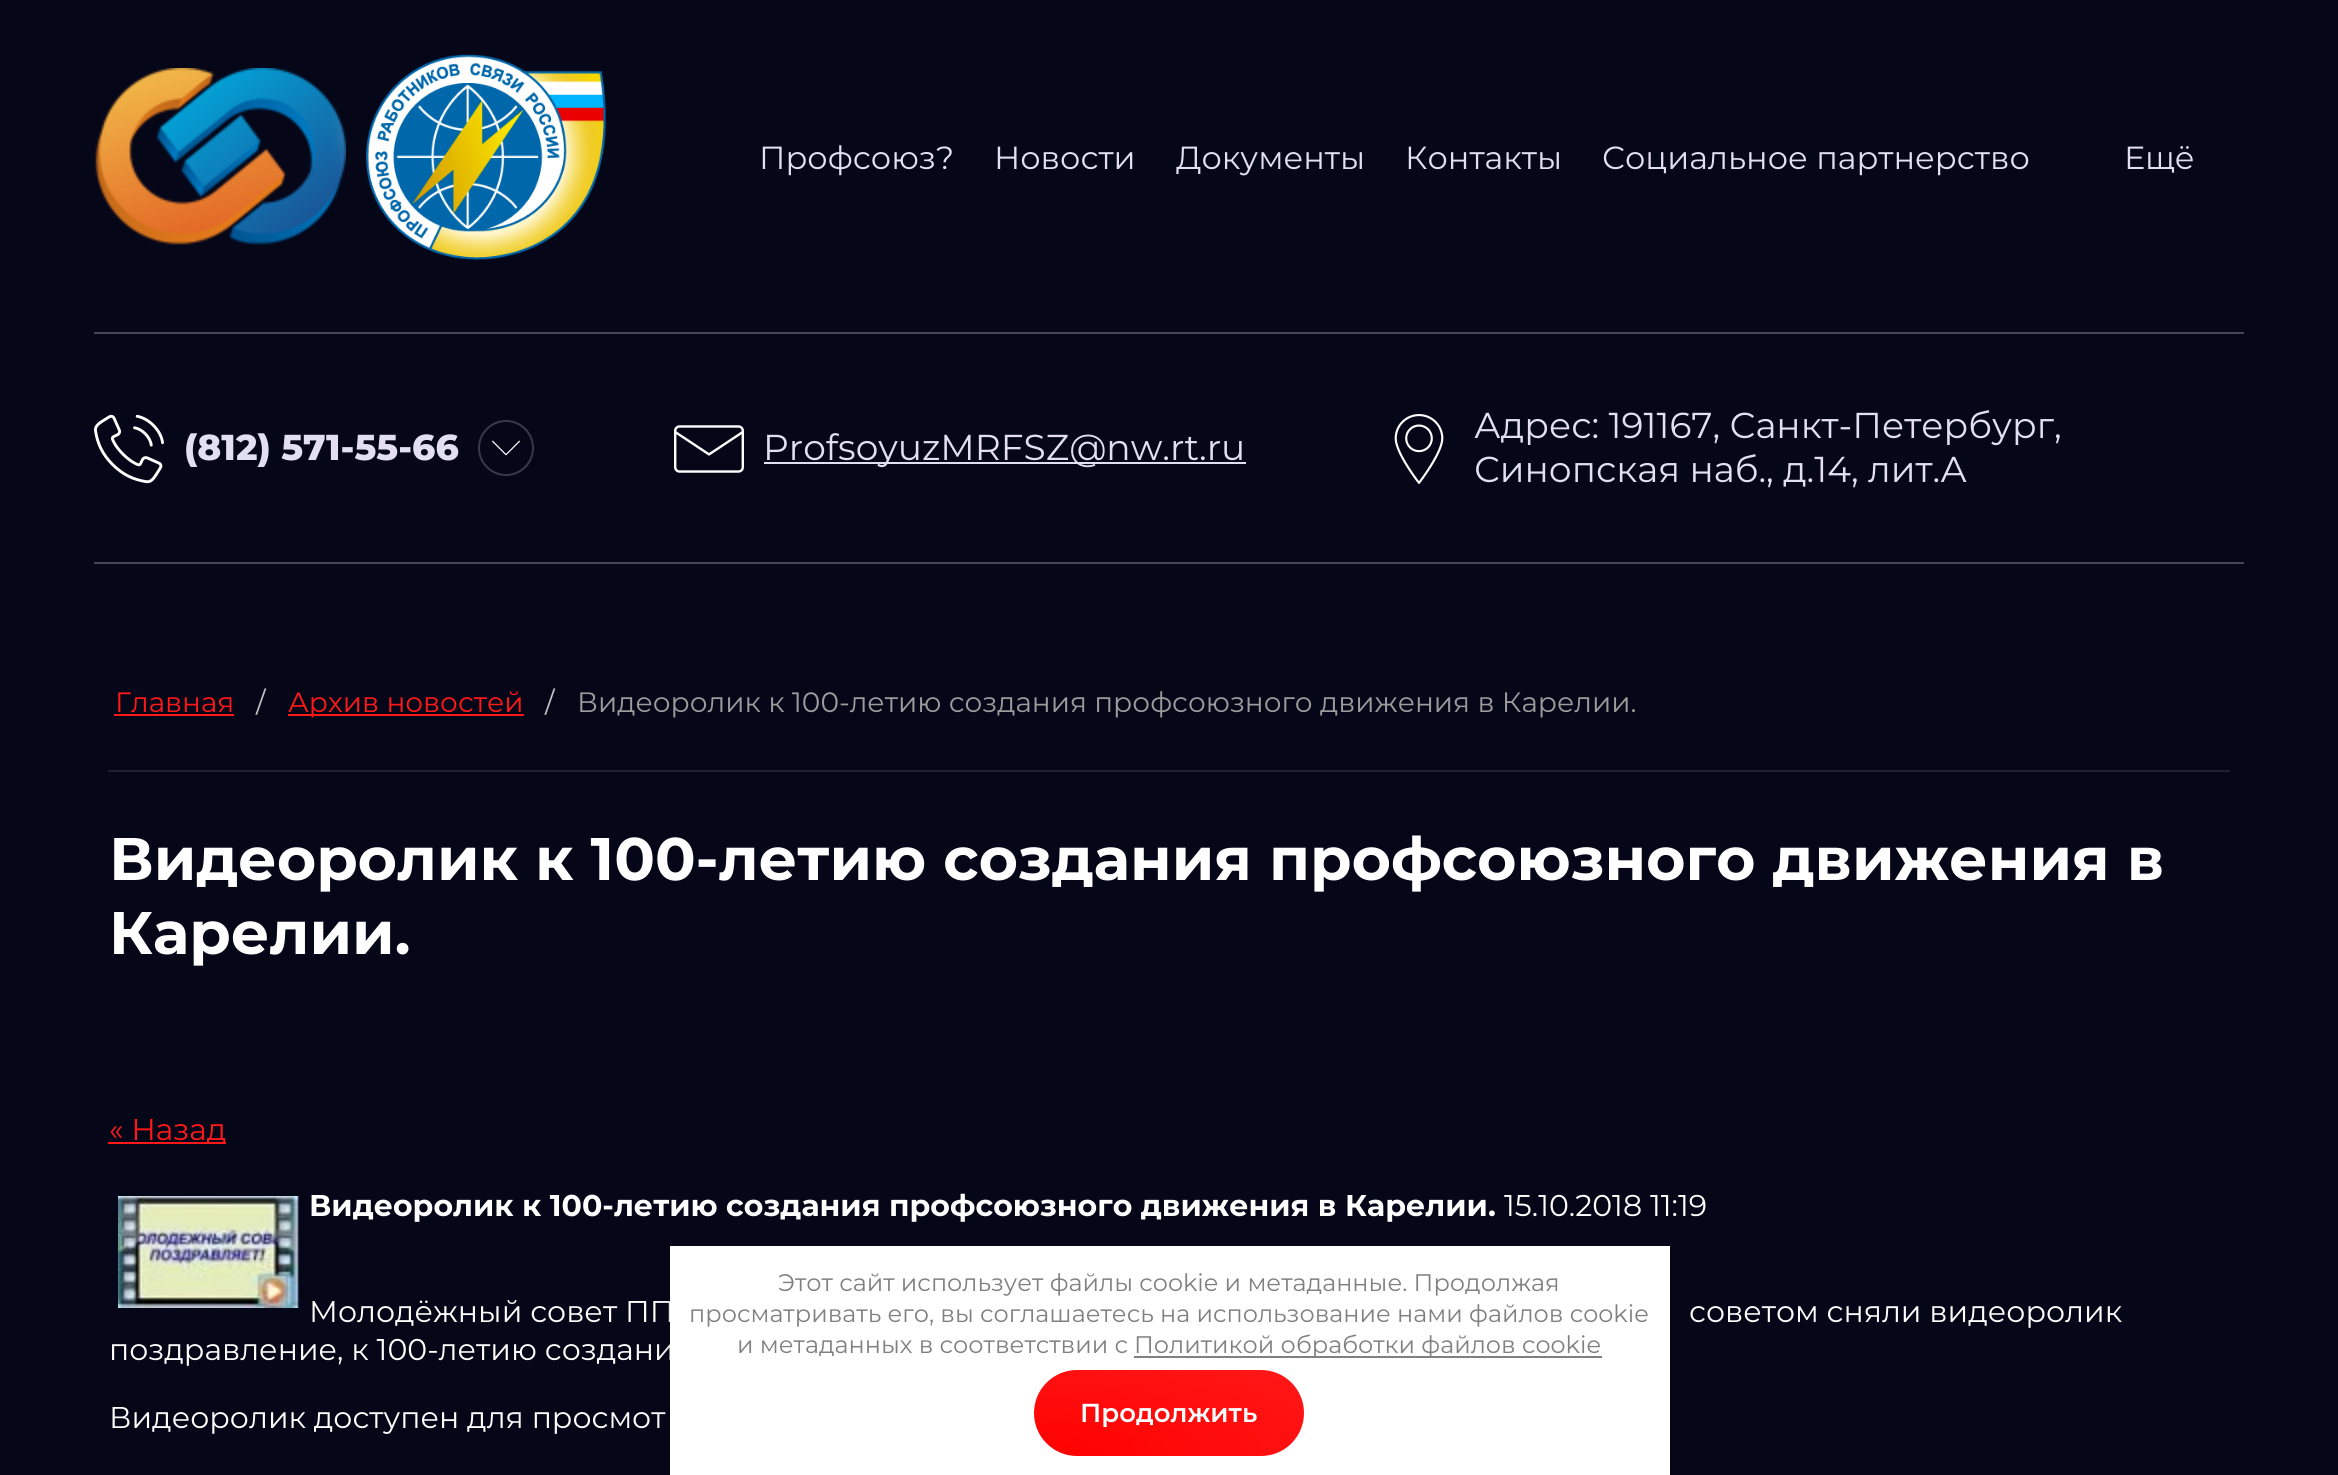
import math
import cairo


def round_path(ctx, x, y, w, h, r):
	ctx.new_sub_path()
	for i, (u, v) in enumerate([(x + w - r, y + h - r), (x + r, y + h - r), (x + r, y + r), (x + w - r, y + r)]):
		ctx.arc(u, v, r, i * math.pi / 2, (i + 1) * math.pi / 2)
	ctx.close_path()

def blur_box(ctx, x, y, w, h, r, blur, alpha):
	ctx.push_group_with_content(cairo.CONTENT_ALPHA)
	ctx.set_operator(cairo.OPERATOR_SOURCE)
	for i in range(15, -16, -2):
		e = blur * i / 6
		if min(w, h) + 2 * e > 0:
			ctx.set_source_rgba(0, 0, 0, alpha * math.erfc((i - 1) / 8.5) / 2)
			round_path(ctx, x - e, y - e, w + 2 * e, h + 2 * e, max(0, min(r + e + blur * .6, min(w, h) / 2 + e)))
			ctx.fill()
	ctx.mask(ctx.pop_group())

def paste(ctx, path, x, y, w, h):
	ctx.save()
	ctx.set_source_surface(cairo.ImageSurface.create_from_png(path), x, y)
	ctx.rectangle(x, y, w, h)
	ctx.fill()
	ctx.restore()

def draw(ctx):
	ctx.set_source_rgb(0.027, 0.024, 0.098)
	ctx.paint()
	paste(ctx, 'media/1.png', 95, 68, 251, 177)
	paste(ctx, 'media/2.png', 366, 54, 240, 206)
	ctx.select_font_face('Montserrat')
	ctx.set_font_size(32)
	ctx.set_source_rgb(0.882, 0.875, 0.945)
	for x, y, s in [
		(759, 169, 'Профсоюз?'),
		(994, 169, 'Новости'),
		(1176, 169, 'Документы'),
		(1405, 169, 'Контакты'),
		(1602, 169, 'Социальное партнерство'),
		(2124, 169, 'Ещё'),
	]:
		ctx.move_to(x, y)
		ctx.show_text(s)
	ctx.set_source_rgb(0.271, 0.267, 0.325)
	ctx.rectangle(94, 332, 2150, 2)
	ctx.fill()
	ctx.rectangle(94, 562, 2150, 2)
	ctx.fill()
	paste(ctx, 'media/3.png', 94, 414, 70, 70)
	ctx.select_font_face('Montserrat ExtraBold')
	ctx.set_font_size(36)
	ctx.set_source_rgb(0.882, 0.875, 0.945)
	ctx.move_to(184, 460)
	ctx.show_text('(812) 571-55-66')
	ctx.new_path()
	ctx.arc(506, 448, 27, 0, 2 * math.pi)
	ctx.set_source_rgb(0.224, 0.22, 0.278)
	ctx.stroke()
	paste(ctx, 'media/4.png', 492, 440, 28, 16)
	paste(ctx, 'media/5.png', 674, 425, 70, 48)
	ctx.set_source_rgb(0.882, 0.875, 0.945)
	ctx.rectangle(764, 462, 482, 2)
	ctx.fill()
	ctx.select_font_face('Montserrat')
	ctx.move_to(763, 460)
	ctx.show_text('ProfsoyuzMRFSZ@nw.rt.ru')
	paste(ctx, 'media/6.png', 1394, 414, 50, 70)
	ctx.move_to(1474, 438)
	ctx.show_text('Адрес: 191167, Санкт-Петербург,')
	ctx.move_to(1474, 482)
	ctx.show_text('Синопская наб., д.14, лит.А')
	ctx.set_source_rgb(0.125, 0.122, 0.188)
	ctx.rectangle(108, 770, 2122, 2)
	ctx.fill()
	ctx.set_font_size(28)
	ctx.set_source_rgb(1, 0.094, 0.094)
	ctx.move_to(115, 712)
	ctx.show_text('Главная')
	ctx.rectangle(114, 714, 120, 2)
	ctx.fill()
	ctx.set_source_rgb(0.753, 0.753, 0.753)
	ctx.move_to(256, 712)
	ctx.show_text('/')
	ctx.set_source_rgb(1, 0.094, 0.094)
	ctx.rectangle(288, 714, 236, 2)
	ctx.fill()
	ctx.move_to(288, 712)
	ctx.show_text('Архив новостей')
	ctx.set_source_rgb(0.753, 0.753, 0.753)
	ctx.move_to(545, 712)
	ctx.show_text('/')
	ctx.set_source_rgb(0.612, 0.612, 0.612)
	ctx.move_to(577, 712)
	ctx.show_text('Видеоролик к 100-летию создания профсоюзного движения в Карелии.')
	ctx.select_font_face('Montserrat', cairo.FONT_SLANT_NORMAL, cairo.FONT_WEIGHT_BOLD)
	ctx.set_font_size(60)
	ctx.set_source_rgb(1, 1, 1)
	ctx.move_to(109, 880)
	ctx.show_text('Видеоролик к 100-летию создания профсоюзного движения в')
	ctx.move_to(109, 954)
	ctx.show_text('Карелии.')
	ctx.set_source_rgb(1, 0.094, 0.094)
	ctx.rectangle(108, 1142, 118, 2)
	ctx.fill()
	ctx.select_font_face('Montserrat')
	ctx.set_font_size(30)
	ctx.move_to(109, 1140)
	ctx.show_text('« Назад')
	paste(ctx, 'media/7.png', 118, 1196, 181, 112)
	ctx.select_font_face('Montserrat', cairo.FONT_SLANT_NORMAL, cairo.FONT_WEIGHT_BOLD)
	ctx.set_source_rgb(1, 1, 1)
	ctx.move_to(309, 1216)
	ctx.show_text('Видеоролик к 100-летию создания профсоюзного движения в Карелии.')
	ctx.select_font_face('Montserrat')
	for x, y, s in [
		(1504, 1216, '15.10.2018 11:19'),
		(309, 1322, 'Молодёжный совет ПП'),
		(1689, 1322, 'советом сняли видеоролик'),
		(109, 1360, 'поздравление, к 100-летию создани'),
		(109, 1428, 'Видеоролик доступен для просмот'),
	]:
		ctx.move_to(x, y)
		ctx.show_text(s)
	ctx.set_source_rgb(0, 0, 0)
	blur_box(ctx, 670, 1248, 1000, 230, 0, 10, 0.23)
	ctx.set_source_rgb(1, 1, 1)
	ctx.rectangle(670, 1246, 1000, 229)
	ctx.fill()
	ctx.set_font_size(24)
	ctx.set_source_rgb(0.502, 0.502, 0.502)
	for x, y, s in [
		(778, 1291, 'Этот сайт использует файлы cookie и метаданные. Продолжая'),
		(689, 1322, 'просматривать его, вы соглашаетесь на использование нами файлов cookie'),
		(737, 1353, 'и метаданных в соответствии с'),
	]:
		ctx.move_to(x, y)
		ctx.show_text(s)
	ctx.rectangle(1134, 1356, 468, 2)
	ctx.fill()
	ctx.move_to(1134, 1353)
	ctx.show_text('Политикой обработки файлов cookie')
	gradient = cairo.RadialGradient(0, 0, 0, 0, 0, 1)
	gradient.set_matrix(cairo.Matrix(1 / 382, 0, 0, 1 / 122, -1 * 1034 / 382, -1 * 1456 / 122))
	gradient.add_color_stop_rgba(0, 1, 0, 0, 1)
	gradient.add_color_stop_rgba(1, 1, 0.094, 0.094, 1)
	ctx.set_source(gradient)
	round_path(ctx, 1034, 1370, 270, 86, 43)
	ctx.fill()
	ctx.select_font_face('Montserrat SemiBold')
	ctx.set_font_size(26)
	ctx.set_source_rgb(1, 1, 1)
	ctx.move_to(1080, 1422)
	ctx.show_text('Продолжить')


surface = cairo.ImageSurface(cairo.FORMAT_RGB24, 2338, 1475)
ctx = cairo.Context(surface)
options = cairo.FontOptions()
options.set_hint_metrics(cairo.HINT_METRICS_OFF)
options.set_hint_style(cairo.HINT_STYLE_NONE)
ctx.set_font_options(options)
ctx.set_miter_limit(4)
draw(ctx)
surface.write_to_png('image.png')
